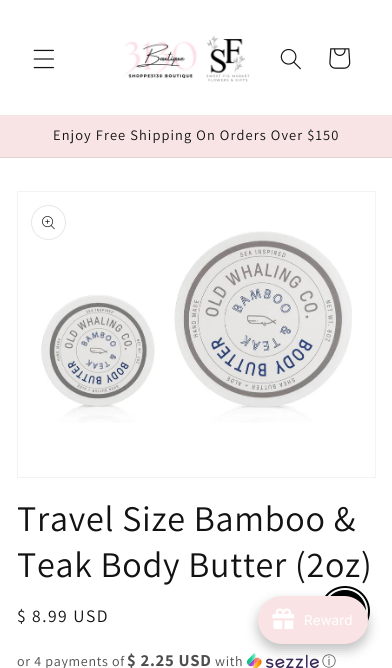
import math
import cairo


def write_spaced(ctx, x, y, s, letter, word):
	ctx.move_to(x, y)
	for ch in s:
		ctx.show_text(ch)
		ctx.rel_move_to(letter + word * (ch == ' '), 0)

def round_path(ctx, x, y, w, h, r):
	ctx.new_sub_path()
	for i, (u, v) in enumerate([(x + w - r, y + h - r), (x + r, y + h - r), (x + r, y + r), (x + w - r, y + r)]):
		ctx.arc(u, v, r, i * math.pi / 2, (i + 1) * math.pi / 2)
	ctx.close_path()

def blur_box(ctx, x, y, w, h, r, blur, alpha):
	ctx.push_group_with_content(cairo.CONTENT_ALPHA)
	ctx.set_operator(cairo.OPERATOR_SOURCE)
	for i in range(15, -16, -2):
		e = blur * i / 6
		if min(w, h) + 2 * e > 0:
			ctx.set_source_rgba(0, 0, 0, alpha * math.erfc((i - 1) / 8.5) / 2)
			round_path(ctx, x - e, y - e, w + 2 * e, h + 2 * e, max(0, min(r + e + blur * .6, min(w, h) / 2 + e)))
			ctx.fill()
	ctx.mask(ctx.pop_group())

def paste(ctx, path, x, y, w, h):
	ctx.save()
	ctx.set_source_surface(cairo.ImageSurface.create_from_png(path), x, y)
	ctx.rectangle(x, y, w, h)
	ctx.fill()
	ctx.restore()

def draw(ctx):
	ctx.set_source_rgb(1, 1, 1)
	ctx.paint()
	paste(ctx, 'media/1.png', 33, 49, 21, 20)
	paste(ctx, 'media/2.png', 124, 36, 126, 46)
	paste(ctx, 'media/3.png', 280, 48, 21, 22)
	paste(ctx, 'media/4.png', 329, 48, 22, 21)
	ctx.set_source_rgb(0.969, 0.894, 0.898)
	ctx.rectangle(0, 115, 392, 42)
	ctx.fill()
	ctx.set_source_rgb(0.898, 0.827, 0.831)
	ctx.rectangle(0, 157, 392, 1)
	ctx.fill()
	ctx.select_font_face('Assistant')
	ctx.set_font_size(14.4)
	ctx.set_source_rgb(0.071, 0.071, 0.071)
	write_spaced(ctx, 53, 140, 'Enjoy Free Shipping On Orders Over $150', 1.1, 0)
	ctx.rectangle(17.5, 191.5, 358, 286)
	ctx.set_source_rgb(0.953, 0.953, 0.953)
	ctx.set_line_width(1)
	ctx.stroke()
	paste(ctx, 'media/6.png', 41, 231, 311, 192)
	ctx.arc(48.5, 222.5, 17, 0, 2 * math.pi)
	ctx.set_source_rgb(0.906, 0.906, 0.906)
	ctx.stroke()
	paste(ctx, 'media/5.png', 42, 216, 13, 14)
	ctx.set_font_size(36)
	ctx.set_source_rgb(0.071, 0.071, 0.071)
	write_spaced(ctx, 17, 531, 'Travel Size Bamboo &', 0.75, 0)
	write_spaced(ctx, 17, 577, 'Teak Body Butter (2oz)', 0.75, 0)
	ctx.set_font_size(17.5)
	write_spaced(ctx, 17, 622, '$ 8.99 USD', 1.5, 0)
	ctx.set_font_size(14)
	ctx.set_source_rgb(0.302, 0.302, 0.302)
	write_spaced(ctx, 17, 666, 'or 4 payments of', 0.7, 0)
	ctx.select_font_face('Assistant', cairo.FONT_SLANT_NORMAL, cairo.FONT_WEIGHT_BOLD)
	ctx.set_font_size(16.75)
	write_spaced(ctx, 127, 666, '$ 2.25 USD', 0.7, 0)
	ctx.select_font_face('Assistant')
	ctx.set_font_size(14)
	write_spaced(ctx, 215, 666, 'with', 0.7, 0)
	paste(ctx, 'media/7.png', 247, 653, 72, 15)
	ctx.select_font_face('WenQuanYi Zen Hei Medium')
	write_spaced(ctx, 322, 666, 'ⓘ', 0.7, 0)
	ctx.new_path()
	ctx.arc(345, 611, 24, 0, 2 * math.pi)
	ctx.set_source_rgb(0, 0, 0)
	ctx.set_line_width(2)
	ctx.stroke()
	ctx.arc(345, 611, 20.5, 0, 2 * math.pi)
	ctx.fill_preserve()
	ctx.set_line_width(1)
	ctx.stroke()
	ctx.set_source_rgb(0, 0, 0)
	blur_box(ctx, 258, 602, 110, 48, 24, 6, 0.25)
	ctx.set_source_rgb(0.973, 0.89, 0.894)
	round_path(ctx, 258, 596, 110, 48, 24)
	ctx.fill()
	paste(ctx, 'media/8.png', 272, 608, 22, 21)
	ctx.select_font_face('Inter')
	ctx.set_font_size(13.5)
	ctx.set_source_rgb(1, 1, 1)
	ctx.move_to(304, 625)
	ctx.show_text('Reward')


surface = cairo.ImageSurface(cairo.FORMAT_RGB24, 392, 668)
ctx = cairo.Context(surface)
options = cairo.FontOptions()
options.set_hint_metrics(cairo.HINT_METRICS_OFF)
options.set_hint_style(cairo.HINT_STYLE_NONE)
ctx.set_font_options(options)
ctx.set_miter_limit(4)
draw(ctx)
surface.write_to_png('image.png')
